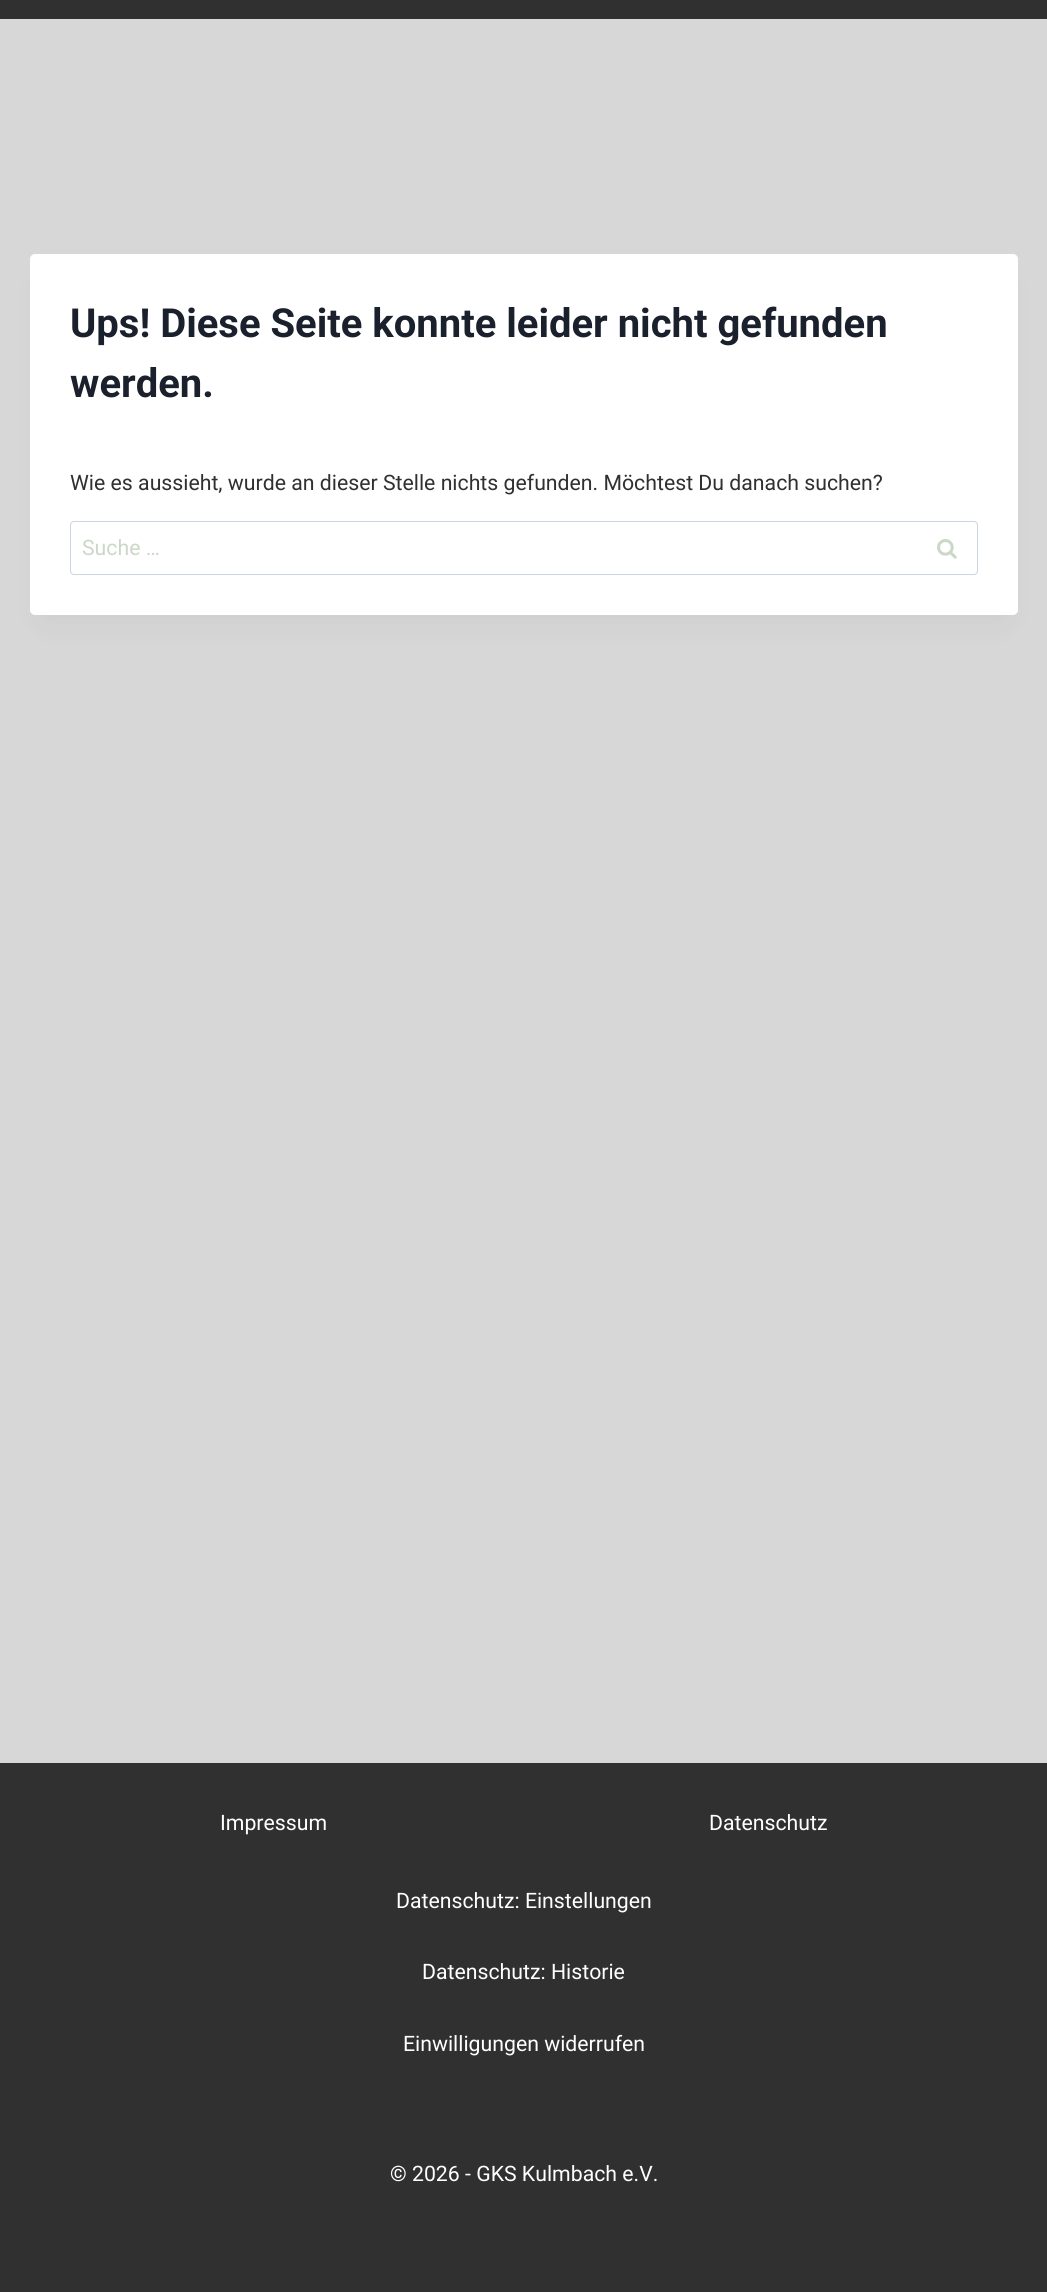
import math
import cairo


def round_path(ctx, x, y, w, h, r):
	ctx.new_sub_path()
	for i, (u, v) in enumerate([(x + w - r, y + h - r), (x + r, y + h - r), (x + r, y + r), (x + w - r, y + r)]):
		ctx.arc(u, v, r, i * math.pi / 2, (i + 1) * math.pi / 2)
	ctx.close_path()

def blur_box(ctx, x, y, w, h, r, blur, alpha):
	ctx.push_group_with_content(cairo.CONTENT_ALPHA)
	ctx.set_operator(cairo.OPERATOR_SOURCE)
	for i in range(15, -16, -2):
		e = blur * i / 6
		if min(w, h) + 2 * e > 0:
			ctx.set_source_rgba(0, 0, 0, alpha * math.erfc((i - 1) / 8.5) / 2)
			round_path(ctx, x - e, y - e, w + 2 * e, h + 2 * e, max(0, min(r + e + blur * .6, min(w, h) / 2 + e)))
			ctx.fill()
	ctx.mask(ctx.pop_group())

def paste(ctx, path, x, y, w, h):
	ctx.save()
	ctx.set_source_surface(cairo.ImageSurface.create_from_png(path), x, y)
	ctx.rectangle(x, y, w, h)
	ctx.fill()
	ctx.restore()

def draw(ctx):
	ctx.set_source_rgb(0.843, 0.843, 0.843)
	ctx.paint()
	ctx.set_source_rgb(0.188, 0.188, 0.188)
	ctx.rectangle(0, 0, 1047, 19)
	ctx.fill()
	ctx.set_source_rgb(0, 0, 0)
	blur_box(ctx, 43, 285, 962, 336, 0, 15.5, 0.05)
	ctx.set_source_rgb(1, 1, 1)
	round_path(ctx, 30, 254, 988, 361, 5)
	ctx.fill()
	ctx.select_font_face('Roboto', cairo.FONT_SLANT_NORMAL, cairo.FONT_WEIGHT_BOLD)
	ctx.set_font_size(40)
	ctx.set_source_rgb(0.102, 0.125, 0.173)
	ctx.move_to(70, 337)
	ctx.show_text('Ups! Diese Seite konnte leider nicht gefunden')
	ctx.move_to(70, 397)
	ctx.show_text('werden.')
	ctx.select_font_face('Roboto')
	ctx.set_font_size(21.25)
	ctx.set_source_rgb(0.188, 0.188, 0.188)
	ctx.move_to(70, 490)
	ctx.show_text('Wie es aussieht, wurde an dieser Stelle nichts gefunden. Möchtest Du danach suchen?')
	round_path(ctx, 70.5, 521.5, 907, 53, 3.5)
	ctx.set_source_rgb(0.796, 0.835, 0.878)
	ctx.set_line_width(1)
	ctx.stroke()
	ctx.set_source_rgb(0.796, 0.847, 0.784)
	ctx.move_to(82, 555)
	ctx.show_text('Suche …')
	paste(ctx, 'media/1.png', 937, 539, 20, 20)
	ctx.set_source_rgb(0.188, 0.188, 0.188)
	ctx.rectangle(0, 1763, 1047, 529)
	ctx.fill()
	ctx.set_source_rgb(1, 1, 1)
	for x, y, s in [
		(220, 1830, 'Impressum'),
		(709, 1830, 'Datenschutz'),
		(396, 1908, 'Datenschutz: Einstellungen'),
		(422, 1979, 'Datenschutz: Historie'),
		(403, 2051, 'Einwilligungen widerrufen'),
		(390, 2181, '© 2026 - GKS Kulmbach e.V.'),
	]:
		ctx.move_to(x, y)
		ctx.show_text(s)


surface = cairo.ImageSurface(cairo.FORMAT_RGB24, 1047, 2292)
ctx = cairo.Context(surface)
options = cairo.FontOptions()
options.set_hint_metrics(cairo.HINT_METRICS_OFF)
options.set_hint_style(cairo.HINT_STYLE_NONE)
ctx.set_font_options(options)
ctx.set_miter_limit(4)
draw(ctx)
surface.write_to_png('image.png')
